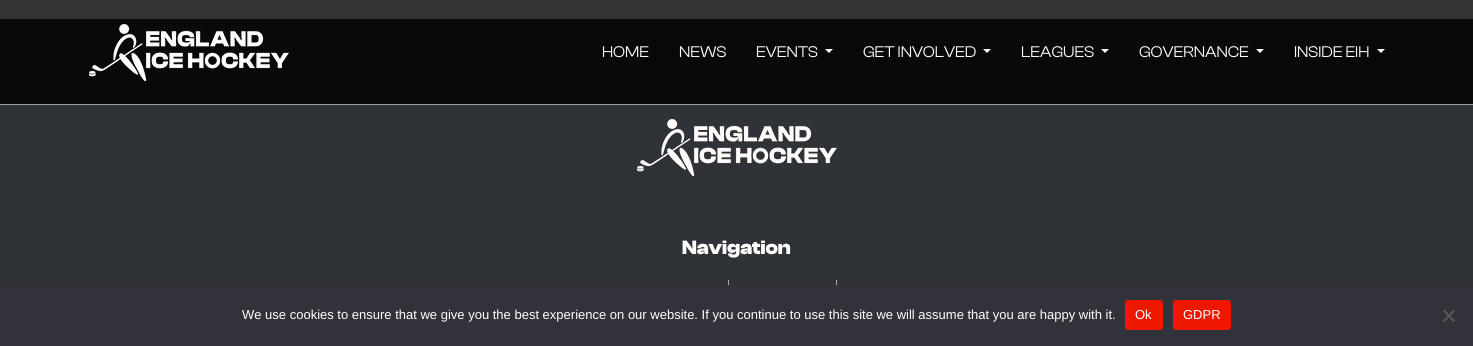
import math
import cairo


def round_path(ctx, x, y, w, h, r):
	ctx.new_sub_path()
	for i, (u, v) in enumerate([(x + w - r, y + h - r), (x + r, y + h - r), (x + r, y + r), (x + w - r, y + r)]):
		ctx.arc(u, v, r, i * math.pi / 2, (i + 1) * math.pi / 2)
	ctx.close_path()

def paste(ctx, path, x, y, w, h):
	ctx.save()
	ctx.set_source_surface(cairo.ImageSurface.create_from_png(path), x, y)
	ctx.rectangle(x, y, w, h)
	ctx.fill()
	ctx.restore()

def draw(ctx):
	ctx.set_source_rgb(0.2, 0.2, 0.2)
	ctx.paint()
	ctx.set_source_rgb(0.616, 0.616, 0.616)
	ctx.rectangle(0, 104, 1473, 1)
	ctx.fill()
	ctx.set_source_rgb(0.035, 0.039, 0.043)
	ctx.rectangle(0, 19, 1473, 85)
	ctx.fill()
	paste(ctx, 'media/1.png', 89, 24, 200, 57)
	ctx.select_font_face('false')
	ctx.set_font_size(16)
	ctx.set_source_rgb(1, 1, 1)
	for x, y, s in [
		(602, 57, 'HOME'),
		(679, 57, 'NEWS'),
		(756, 57, 'EVENTS'),
	]:
		ctx.move_to(x, y)
		ctx.show_text(s)
	ctx.new_path()
	ctx.move_to(825, 49)
	ctx.line_to(833, 49)
	ctx.line_to(829, 53)
	ctx.close_path()
	ctx.fill()
	ctx.move_to(863, 57)
	ctx.show_text('GET INVOLVED')
	ctx.new_path()
	ctx.move_to(983, 49)
	ctx.line_to(991, 49)
	ctx.line_to(987, 53)
	ctx.close_path()
	ctx.fill()
	ctx.move_to(1021, 57)
	ctx.show_text('LEAGUES')
	ctx.new_path()
	ctx.move_to(1101, 49)
	ctx.line_to(1109, 49)
	ctx.line_to(1105, 53)
	ctx.close_path()
	ctx.fill()
	ctx.move_to(1139, 57)
	ctx.show_text('GOVERNANCE')
	ctx.new_path()
	ctx.move_to(1256, 49)
	ctx.line_to(1264, 49)
	ctx.line_to(1260, 53)
	ctx.close_path()
	ctx.fill()
	ctx.move_to(1294, 57)
	ctx.show_text('INSIDE EIH')
	ctx.new_path()
	ctx.move_to(1377, 49)
	ctx.line_to(1385, 49)
	ctx.line_to(1381, 53)
	ctx.close_path()
	ctx.fill()
	ctx.set_source_rgb(0.184, 0.2, 0.216)
	ctx.rectangle(0, 105, 1473, 180)
	ctx.fill()
	paste(ctx, 'media/2.png', 637, 119, 200, 57)
	ctx.select_font_face('false', cairo.FONT_SLANT_NORMAL, cairo.FONT_WEIGHT_BOLD)
	ctx.set_font_size(20)
	ctx.set_source_rgb(1, 1, 1)
	ctx.move_to(682, 254)
	ctx.show_text('Navigation')
	ctx.set_source_rgb(0.675, 0.678, 0.686)
	ctx.rectangle(728, 280, 1, 5)
	ctx.rectangle(836, 280, 1, 5)
	ctx.fill()
	ctx.set_source_rgb(0.196, 0.196, 0.227)
	ctx.rectangle(0, 285, 1473, 61)
	ctx.fill()
	ctx.select_font_face('Liberation Sans')
	ctx.set_font_size(13)
	ctx.set_source_rgb(1, 1, 1)
	ctx.move_to(242, 319)
	ctx.show_text('We use cookies to ensure that we give you the best experience on our website. If you continue to use this site we will assume that you are happy with it.')
	ctx.set_source_rgb(0.937, 0.09, 0)
	round_path(ctx, 1125, 300, 38, 30, 3)
	ctx.fill()
	ctx.set_source_rgb(1, 1, 1)
	ctx.move_to(1135, 319)
	ctx.show_text('Ok')
	ctx.set_source_rgb(0.937, 0.09, 0)
	round_path(ctx, 1173, 300, 58, 30, 3)
	ctx.fill()
	ctx.set_source_rgb(1, 1, 1)
	ctx.move_to(1183, 319)
	ctx.show_text('GDPR')
	ctx.set_source_rgb(0.349, 0.349, 0.365)
	ctx.new_path()
	ctx.move_to(1453.5, 309.5)
	ctx.line_to(1455, 311)
	ctx.line_to(1444.5, 322)
	ctx.line_to(1443, 320.5)
	ctx.close_path()
	ctx.fill()
	ctx.new_path()
	ctx.move_to(1443, 311)
	ctx.line_to(1444.5, 309.5)
	ctx.line_to(1455, 320.5)
	ctx.line_to(1453.5, 322)
	ctx.close_path()
	ctx.fill()


surface = cairo.ImageSurface(cairo.FORMAT_RGB24, 1473, 346)
ctx = cairo.Context(surface)
options = cairo.FontOptions()
options.set_hint_metrics(cairo.HINT_METRICS_OFF)
options.set_hint_style(cairo.HINT_STYLE_NONE)
ctx.set_font_options(options)
ctx.set_miter_limit(4)
draw(ctx)
surface.write_to_png('image.png')
